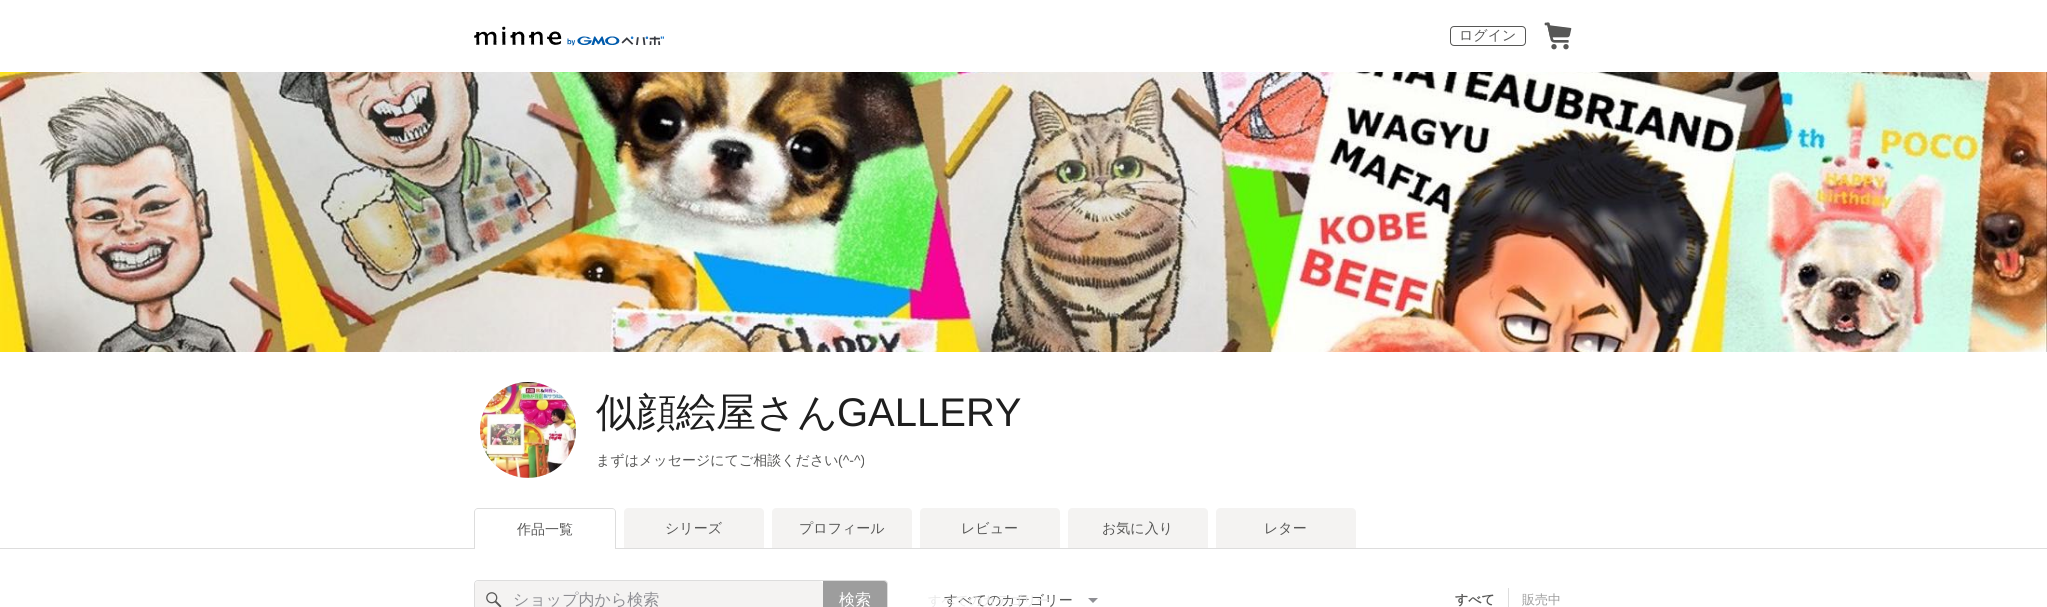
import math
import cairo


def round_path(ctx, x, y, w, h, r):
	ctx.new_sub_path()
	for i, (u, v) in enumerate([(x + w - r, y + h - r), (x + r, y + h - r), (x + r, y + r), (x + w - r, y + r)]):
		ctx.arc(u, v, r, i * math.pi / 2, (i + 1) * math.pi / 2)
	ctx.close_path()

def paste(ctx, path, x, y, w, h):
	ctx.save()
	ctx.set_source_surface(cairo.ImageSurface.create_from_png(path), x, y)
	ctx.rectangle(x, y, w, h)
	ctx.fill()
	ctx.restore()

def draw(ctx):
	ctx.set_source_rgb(1, 1, 1)
	ctx.paint()
	paste(ctx, 'media/1.png', 474, 26, 190, 20)
	round_path(ctx, 1450.5, 26.5, 75, 19, 3.5)
	ctx.set_source_rgb(0.341, 0.341, 0.337)
	ctx.set_line_width(1)
	ctx.stroke()
	ctx.select_font_face('WenQuanYi Zen Hei Medium')
	ctx.set_font_size(14)
	ctx.move_to(1459, 40)
	ctx.show_text('ログイン')
	paste(ctx, 'media/2.png', 1544, 22, 28, 28)
	paste(ctx, 'media/3.png', 0, 72, 2047, 280)
	ctx.arc(528, 430, 47.5, 0, 2 * math.pi)
	ctx.set_source_rgb(0.867, 0.867, 0.867)
	ctx.stroke()
	paste(ctx, 'media/4.png', 480, 382, 96, 96)
	ctx.set_font_size(40)
	ctx.set_source_rgb(0.118, 0.118, 0.118)
	ctx.move_to(596, 426)
	ctx.show_text('似顔絵屋さん')
	ctx.select_font_face('Liberation Sans')
	ctx.move_to(837, 426)
	ctx.show_text('GALLERY')
	ctx.select_font_face('WenQuanYi Zen Hei Medium')
	ctx.set_font_size(14)
	ctx.set_source_rgb(0.341, 0.341, 0.337)
	ctx.move_to(596, 465)
	ctx.show_text('まずはメッセージにてご相談ください')
	ctx.select_font_face('Liberation Sans')
	ctx.move_to(838, 465)
	ctx.show_text('(^-^)')
	ctx.set_source_rgb(0.867, 0.867, 0.867)
	ctx.rectangle(0, 548, 2047, 1)
	ctx.fill()
	ctx.set_source_rgb(1, 1, 1)
	ctx.new_path()
	ctx.move_to(478, 508)
	ctx.line_to(612, 508)
	ctx.curve_to(614, 508, 616, 510, 616, 512)
	ctx.line_to(616, 549)
	ctx.line_to(474, 549)
	ctx.line_to(474, 512)
	ctx.curve_to(474, 510, 476, 508, 478, 508)
	ctx.close_path()
	ctx.fill()
	ctx.set_source_rgb(0.867, 0.867, 0.867)
	ctx.set_fill_rule(cairo.FILL_RULE_EVEN_ODD)
	ctx.new_path()
	ctx.move_to(478, 508)
	ctx.line_to(612, 508)
	ctx.curve_to(614, 508, 616, 510, 616, 512)
	ctx.line_to(616, 549)
	ctx.line_to(474, 549)
	ctx.line_to(474, 512)
	ctx.curve_to(474, 510, 476, 508, 478, 508)
	ctx.close_path()
	ctx.move_to(478, 509)
	ctx.line_to(612, 509)
	ctx.curve_to(614, 509, 615, 510, 615, 512)
	ctx.line_to(615, 549)
	ctx.line_to(475, 549)
	ctx.line_to(475, 512)
	ctx.curve_to(475, 510, 476, 509, 478, 509)
	ctx.close_path()
	ctx.fill()
	ctx.select_font_face('WenQuanYi Zen Hei Medium')
	ctx.set_source_rgb(0.341, 0.341, 0.337)
	ctx.move_to(517, 534)
	ctx.show_text('作品一覧')
	ctx.set_source_rgb(0.957, 0.953, 0.949)
	ctx.new_path()
	ctx.move_to(628, 508)
	ctx.line_to(760, 508)
	ctx.curve_to(762, 508, 764, 510, 764, 512)
	ctx.line_to(764, 548)
	ctx.line_to(624, 548)
	ctx.line_to(624, 512)
	ctx.curve_to(624, 510, 626, 508, 628, 508)
	ctx.close_path()
	ctx.fill()
	ctx.set_source_rgb(0.341, 0.341, 0.337)
	ctx.move_to(665, 533)
	ctx.show_text('シリーズ')
	ctx.set_source_rgb(0.957, 0.953, 0.949)
	ctx.new_path()
	ctx.move_to(776, 508)
	ctx.line_to(908, 508)
	ctx.curve_to(910, 508, 912, 510, 912, 512)
	ctx.line_to(912, 548)
	ctx.line_to(772, 548)
	ctx.line_to(772, 512)
	ctx.curve_to(772, 510, 774, 508, 776, 508)
	ctx.close_path()
	ctx.fill()
	ctx.set_source_rgb(0.341, 0.341, 0.337)
	ctx.move_to(799, 533)
	ctx.show_text('プロフィール')
	ctx.set_source_rgb(0.957, 0.953, 0.949)
	ctx.new_path()
	ctx.move_to(924, 508)
	ctx.line_to(1056, 508)
	ctx.curve_to(1058, 508, 1060, 510, 1060, 512)
	ctx.line_to(1060, 548)
	ctx.line_to(920, 548)
	ctx.line_to(920, 512)
	ctx.curve_to(920, 510, 922, 508, 924, 508)
	ctx.close_path()
	ctx.fill()
	ctx.set_source_rgb(0.341, 0.341, 0.337)
	ctx.move_to(961, 533)
	ctx.show_text('レビュー')
	ctx.set_source_rgb(0.957, 0.953, 0.949)
	ctx.new_path()
	ctx.move_to(1072, 508)
	ctx.line_to(1204, 508)
	ctx.curve_to(1206, 508, 1208, 510, 1208, 512)
	ctx.line_to(1208, 548)
	ctx.line_to(1068, 548)
	ctx.line_to(1068, 512)
	ctx.curve_to(1068, 510, 1070, 508, 1072, 508)
	ctx.close_path()
	ctx.fill()
	ctx.set_source_rgb(0.341, 0.341, 0.337)
	ctx.move_to(1102, 533)
	ctx.show_text('お気に入り')
	ctx.set_source_rgb(0.957, 0.953, 0.949)
	ctx.new_path()
	ctx.move_to(1220, 508)
	ctx.line_to(1352, 508)
	ctx.curve_to(1354, 508, 1356, 510, 1356, 512)
	ctx.line_to(1356, 548)
	ctx.line_to(1216, 548)
	ctx.line_to(1216, 512)
	ctx.curve_to(1216, 510, 1218, 508, 1220, 508)
	ctx.close_path()
	ctx.fill()
	ctx.set_source_rgb(0.341, 0.341, 0.337)
	ctx.move_to(1264, 533)
	ctx.show_text('レター')
	round_path(ctx, 474.5, 580.5, 413, 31, 3.5)
	ctx.set_source_rgb(0.867, 0.867, 0.867)
	ctx.stroke()
	ctx.set_source_rgb(0.957, 0.953, 0.949)
	round_path(ctx, 475, 581, 348, 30, 4)
	ctx.fill()
	paste(ctx, 'media/5.png', 486, 592, 16, 15)
	ctx.set_font_size(16)
	ctx.set_source_rgb(0.557, 0.557, 0.576)
	ctx.move_to(513, 605)
	ctx.show_text('ショップ内から検索')
	ctx.set_source_rgb(0.616, 0.616, 0.616)
	ctx.new_path()
	ctx.move_to(823, 581)
	ctx.line_to(884, 581)
	ctx.curve_to(885.5, 581, 887, 582.5, 887, 584)
	ctx.line_to(887, 607)
	ctx.curve_to(887, 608.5, 885.5, 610, 884, 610)
	ctx.line_to(823, 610)
	ctx.close_path()
	ctx.fill()
	ctx.set_source_rgb(1, 1, 1)
	ctx.move_to(839, 605)
	ctx.show_text('検索')
	ctx.set_font_size(14)
	ctx.set_source_rgb(0.341, 0.341, 0.337)
	ctx.move_to(944, 605)
	ctx.show_text('すべてのカテゴリー')
	ctx.set_source_rgb(0.557, 0.557, 0.576)
	ctx.set_fill_rule(cairo.FILL_RULE_WINDING)
	ctx.new_path()
	ctx.move_to(1088, 598)
	ctx.line_to(1093, 603)
	ctx.line_to(1098, 598)
	ctx.close_path()
	ctx.fill()
	ctx.set_font_size(13.25)
	ctx.set_source_rgb(0.91, 0.91, 0.91)
	ctx.move_to(928, 605)
	ctx.show_text('すべてのカテゴリー')
	ctx.select_font_face('WenQuanYi Zen Hei', cairo.FONT_SLANT_NORMAL, cairo.FONT_WEIGHT_BOLD)
	ctx.set_font_size(13)
	ctx.set_source_rgb(0.341, 0.341, 0.337)
	ctx.move_to(1455, 604)
	ctx.show_text('すべて')
	ctx.set_source_rgb(0.867, 0.867, 0.867)
	ctx.rectangle(1508, 588, 1, 19)
	ctx.fill()
	ctx.select_font_face('WenQuanYi Zen Hei Medium')
	ctx.set_source_rgb(0.616, 0.616, 0.616)
	ctx.move_to(1522, 604)
	ctx.show_text('販売中')


surface = cairo.ImageSurface(cairo.FORMAT_RGB24, 2047, 607)
ctx = cairo.Context(surface)
options = cairo.FontOptions()
options.set_hint_metrics(cairo.HINT_METRICS_OFF)
options.set_hint_style(cairo.HINT_STYLE_NONE)
ctx.set_font_options(options)
ctx.set_miter_limit(4)
draw(ctx)
surface.write_to_png('image.png')
